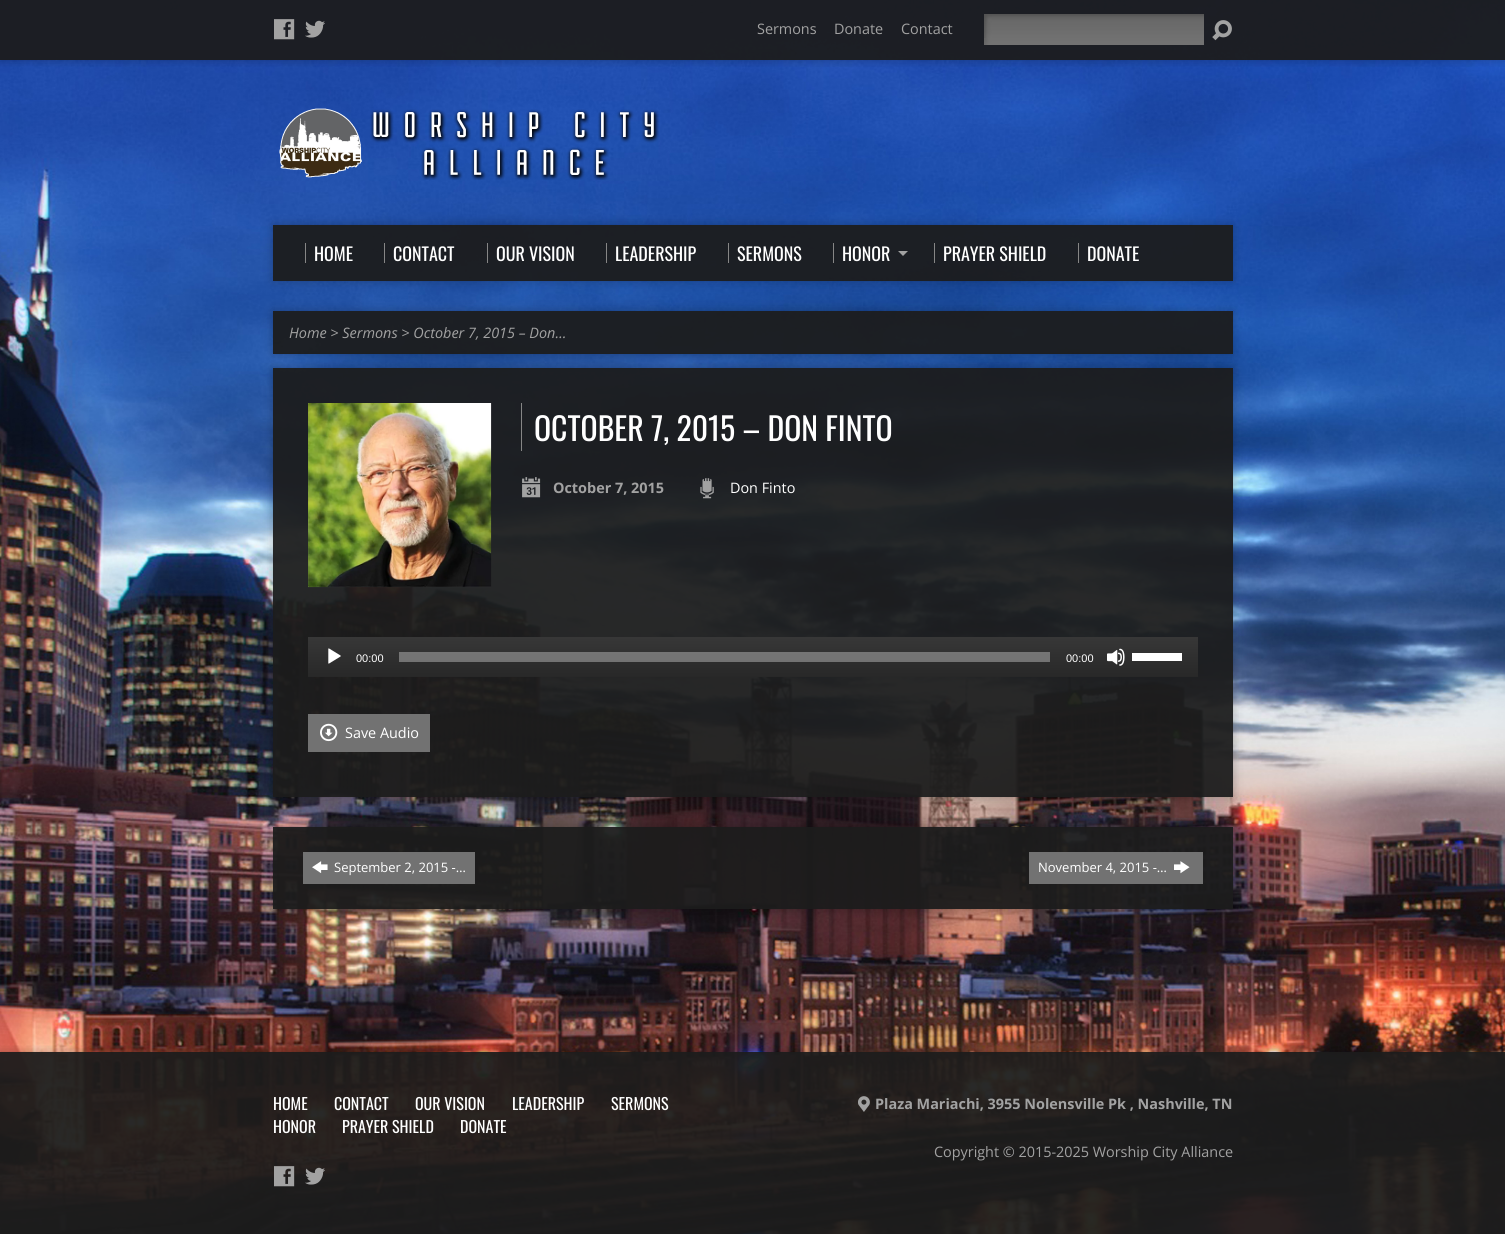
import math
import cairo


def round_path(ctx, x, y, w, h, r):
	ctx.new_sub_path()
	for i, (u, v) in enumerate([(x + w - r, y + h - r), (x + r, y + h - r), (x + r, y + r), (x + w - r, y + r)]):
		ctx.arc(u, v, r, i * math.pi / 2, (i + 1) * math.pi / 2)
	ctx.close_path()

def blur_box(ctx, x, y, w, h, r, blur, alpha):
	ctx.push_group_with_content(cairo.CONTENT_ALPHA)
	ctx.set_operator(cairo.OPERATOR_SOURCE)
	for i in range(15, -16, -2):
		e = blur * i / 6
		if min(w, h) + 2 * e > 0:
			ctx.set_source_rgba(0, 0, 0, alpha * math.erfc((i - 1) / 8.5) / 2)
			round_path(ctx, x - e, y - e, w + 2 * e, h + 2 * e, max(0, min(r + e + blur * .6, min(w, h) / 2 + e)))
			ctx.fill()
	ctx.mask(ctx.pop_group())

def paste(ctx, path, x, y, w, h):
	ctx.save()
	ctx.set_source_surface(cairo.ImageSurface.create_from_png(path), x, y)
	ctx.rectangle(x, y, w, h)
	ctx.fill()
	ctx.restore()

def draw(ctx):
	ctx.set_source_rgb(1, 1, 1)
	ctx.paint()
	paste(ctx, 'media/1.png', 0, 0, 1505, 1234)
	ctx.save()
	ctx.rectangle(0, 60, 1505, 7)
	ctx.clip()
	ctx.set_source_rgb(0, 0, 0)
	blur_box(ctx, 0, 0, 1505, 60, 0, 5, 0.25)
	ctx.restore()
	ctx.set_source_rgba(0.11, 0.11, 0.11, 0.94)
	ctx.rectangle(0, 0, 1505, 60)
	ctx.fill()
	paste(ctx, 'media/2.png', 274, 19, 21, 21)
	paste(ctx, 'media/3.png', 305, 20, 20, 18)
	ctx.select_font_face('Open Sans')
	ctx.set_font_size(14.4)
	ctx.set_source_rgb(0.635, 0.635, 0.635)
	for x, y, s in [
		(757, 34, 'Sermons'),
		(834, 34, 'Donate'),
		(901, 34, 'Contact'),
	]:
		ctx.move_to(x, y)
		ctx.show_text(s)
	paste(ctx, 'media/4.png', 984, 14, 220, 31)
	paste(ctx, 'media/5.png', 1212, 20, 20, 21)
	paste(ctx, 'media/6.png', 279, 108, 380, 72)
	ctx.save()
	ctx.set_fill_rule(cairo.FILL_RULE_EVEN_ODD)
	ctx.new_path()
	ctx.move_to(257, 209)
	ctx.line_to(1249, 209)
	ctx.line_to(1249, 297)
	ctx.line_to(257, 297)
	ctx.close_path()
	ctx.move_to(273, 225)
	ctx.line_to(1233, 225)
	ctx.line_to(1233, 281)
	ctx.line_to(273, 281)
	ctx.close_path()
	ctx.clip()
	ctx.set_source_rgb(0, 0, 0)
	blur_box(ctx, 273, 225, 960, 56, 0, 5, 0.25)
	ctx.restore()
	ctx.set_source_rgba(0.11, 0.11, 0.11, 0.94)
	ctx.rectangle(273, 225, 960, 56)
	ctx.fill()
	ctx.set_source_rgb(0.525, 0.525, 0.525)
	ctx.rectangle(305, 243, 1, 20)
	ctx.fill()
	ctx.select_font_face('Oswald')
	ctx.set_font_size(18)
	ctx.set_source_rgb(1, 1, 1)
	ctx.move_to(314, 261)
	ctx.show_text('HOME')
	ctx.set_source_rgb(0.525, 0.525, 0.525)
	ctx.rectangle(384, 243, 1, 20)
	ctx.fill()
	ctx.set_source_rgb(1, 1, 1)
	ctx.move_to(393, 261)
	ctx.show_text('CONTACT')
	ctx.set_source_rgb(0.525, 0.525, 0.525)
	ctx.rectangle(487, 243, 1, 20)
	ctx.fill()
	ctx.set_source_rgb(1, 1, 1)
	ctx.move_to(496, 261)
	ctx.show_text('OUR VISION')
	ctx.set_source_rgb(0.525, 0.525, 0.525)
	ctx.rectangle(606, 243, 1, 20)
	ctx.fill()
	ctx.set_source_rgb(1, 1, 1)
	ctx.move_to(615, 261)
	ctx.show_text('LEADERSHIP')
	ctx.set_source_rgb(0.525, 0.525, 0.525)
	ctx.rectangle(728, 243, 1, 20)
	ctx.fill()
	ctx.set_source_rgb(1, 1, 1)
	ctx.move_to(737, 261)
	ctx.show_text('SERMONS')
	ctx.set_source_rgb(0.525, 0.525, 0.525)
	ctx.rectangle(833, 243, 1, 20)
	ctx.fill()
	ctx.set_source_rgb(1, 1, 1)
	ctx.move_to(842, 261)
	ctx.show_text('HONOR')
	ctx.set_source_rgb(0.635, 0.635, 0.635)
	ctx.new_path()
	ctx.move_to(898, 251)
	ctx.line_to(908, 251)
	ctx.line_to(903, 256)
	ctx.close_path()
	ctx.fill()
	ctx.set_source_rgb(0.525, 0.525, 0.525)
	ctx.rectangle(934, 243, 1, 20)
	ctx.fill()
	ctx.set_source_rgb(1, 1, 1)
	ctx.move_to(943, 261)
	ctx.show_text('PRAYER SHIELD')
	ctx.set_source_rgb(0.525, 0.525, 0.525)
	ctx.rectangle(1078, 243, 1, 20)
	ctx.fill()
	ctx.set_source_rgb(1, 1, 1)
	ctx.move_to(1087, 261)
	ctx.show_text('DONATE')
	ctx.save()
	ctx.set_fill_rule(cairo.FILL_RULE_EVEN_ODD)
	ctx.new_path()
	ctx.move_to(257, 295)
	ctx.line_to(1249, 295)
	ctx.line_to(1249, 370)
	ctx.line_to(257, 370)
	ctx.close_path()
	ctx.move_to(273, 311)
	ctx.line_to(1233, 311)
	ctx.line_to(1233, 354)
	ctx.line_to(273, 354)
	ctx.close_path()
	ctx.clip()
	ctx.set_source_rgb(0, 0, 0)
	blur_box(ctx, 273, 311, 960, 43, 0, 5, 0.25)
	ctx.restore()
	ctx.set_source_rgba(0.11, 0.11, 0.11, 0.94)
	ctx.rectangle(273, 311, 960, 43)
	ctx.fill()
	ctx.select_font_face('Open Sans', cairo.FONT_SLANT_ITALIC)
	ctx.set_font_size(14.4)
	ctx.set_source_rgb(0.635, 0.635, 0.635)
	ctx.move_to(289, 338)
	ctx.show_text('Home > Sermons > October 7, 2015 – Don…')
	ctx.save()
	ctx.set_fill_rule(cairo.FILL_RULE_EVEN_ODD)
	ctx.new_path()
	ctx.move_to(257, 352)
	ctx.line_to(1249, 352)
	ctx.line_to(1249, 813)
	ctx.line_to(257, 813)
	ctx.close_path()
	ctx.move_to(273, 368)
	ctx.line_to(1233, 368)
	ctx.line_to(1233, 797)
	ctx.line_to(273, 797)
	ctx.close_path()
	ctx.clip()
	ctx.set_source_rgb(0, 0, 0)
	blur_box(ctx, 273, 368, 960, 429, 0, 5, 0.25)
	ctx.restore()
	ctx.set_source_rgba(0.11, 0.11, 0.11, 0.94)
	ctx.rectangle(273, 368, 960, 429)
	ctx.fill()
	paste(ctx, 'media/7.png', 308, 403, 184, 185)
	ctx.set_source_rgb(0.525, 0.525, 0.525)
	ctx.rectangle(521, 403, 1, 48)
	ctx.fill()
	ctx.select_font_face('Oswald')
	ctx.set_font_size(31.75)
	ctx.set_source_rgb(1, 1, 1)
	ctx.move_to(534, 441)
	ctx.show_text('OCTOBER 7, 2015 – DON FINTO')
	paste(ctx, 'media/8.png', 522, 477, 19, 21)
	ctx.select_font_face('Open Sans', cairo.FONT_SLANT_NORMAL, cairo.FONT_WEIGHT_BOLD)
	ctx.set_font_size(14.4)
	ctx.set_source_rgb(0.635, 0.635, 0.635)
	ctx.move_to(553, 493)
	ctx.show_text('October 7, 2015')
	paste(ctx, 'media/9.png', 700, 478, 14, 21)
	ctx.select_font_face('Open Sans')
	ctx.set_source_rgb(1, 1, 1)
	ctx.move_to(730, 493)
	ctx.show_text('Don Finto')
	gradient = cairo.LinearGradient(753, 637, 753, 677)
	gradient.add_color_stop_rgba(0, 0.216, 0.216, 0.216, 1)
	gradient.add_color_stop_rgba(1, 0.157, 0.157, 0.157, 1)
	ctx.set_source(gradient)
	ctx.rectangle(308, 637, 890, 40)
	ctx.fill()
	paste(ctx, 'media/10.png', 328, 648, 13, 16)
	ctx.select_font_face('Liberation Sans')
	ctx.set_font_size(11)
	ctx.set_source_rgb(1, 1, 1)
	ctx.move_to(356, 662)
	ctx.show_text('00:00')
	ctx.set_source_rgba(1, 1, 1, 0.33)
	ctx.rectangle(399, 652, 651, 10)
	ctx.fill()
	ctx.set_source_rgb(1, 1, 1)
	ctx.move_to(1066, 662)
	ctx.show_text('00:00')
	paste(ctx, 'media/11.png', 1107, 648, 18, 18)
	ctx.rectangle(1132, 653, 50, 8)
	ctx.fill()
	ctx.set_source_rgb(0.447, 0.447, 0.447)
	ctx.rectangle(308, 714, 122, 38)
	ctx.fill()
	paste(ctx, 'media/12.png', 320, 723, 18, 19)
	ctx.select_font_face('Open Sans')
	ctx.set_font_size(14.4)
	ctx.set_source_rgb(1, 1, 1)
	ctx.move_to(345, 738)
	ctx.show_text('Save Audio')
	ctx.save()
	ctx.set_fill_rule(cairo.FILL_RULE_EVEN_ODD)
	ctx.new_path()
	ctx.move_to(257, 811)
	ctx.line_to(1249, 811)
	ctx.line_to(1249, 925)
	ctx.line_to(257, 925)
	ctx.close_path()
	ctx.move_to(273, 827)
	ctx.line_to(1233, 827)
	ctx.line_to(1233, 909)
	ctx.line_to(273, 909)
	ctx.close_path()
	ctx.clip()
	ctx.set_source_rgb(0, 0, 0)
	blur_box(ctx, 273, 827, 960, 82, 0, 5, 0.25)
	ctx.restore()
	ctx.set_source_rgba(0.11, 0.11, 0.11, 0.94)
	ctx.rectangle(273, 827, 960, 82)
	ctx.fill()
	ctx.set_source_rgb(0.447, 0.447, 0.447)
	ctx.rectangle(303, 852, 172, 32)
	ctx.fill()
	paste(ctx, 'media/13.png', 312, 861, 16, 12)
	ctx.set_font_size(13)
	ctx.set_source_rgb(1, 1, 1)
	ctx.move_to(334, 872)
	ctx.show_text('September 2, 2015 -…')
	ctx.set_source_rgb(0.447, 0.447, 0.447)
	ctx.rectangle(1029, 852, 174, 32)
	ctx.fill()
	ctx.set_source_rgb(1, 1, 1)
	ctx.move_to(1038, 872)
	ctx.show_text('November 4, 2015 -…')
	paste(ctx, 'media/14.png', 1174, 861, 16, 13)
	ctx.save()
	ctx.rectangle(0, 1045, 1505, 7)
	ctx.clip()
	ctx.set_source_rgb(0, 0, 0)
	blur_box(ctx, 0, 1052, 1505, 182, 0, 5, 0.25)
	ctx.restore()
	ctx.set_source_rgba(0.11, 0.11, 0.11, 0.94)
	ctx.rectangle(0, 1052, 1505, 182)
	ctx.fill()
	ctx.select_font_face('Oswald')
	ctx.set_font_size(16)
	ctx.set_source_rgb(1, 1, 1)
	for x, y, s in [
		(273, 1110, 'HOME'),
		(334, 1110, 'CONTACT'),
		(415, 1110, 'OUR VISION'),
		(512, 1110, 'LEADERSHIP'),
		(611, 1110, 'SERMONS'),
		(273, 1133, 'HONOR'),
		(342, 1133, 'PRAYER SHIELD'),
		(460, 1133, 'DONATE'),
	]:
		ctx.move_to(x, y)
		ctx.show_text(s)
	paste(ctx, 'media/15.png', 274, 1166, 21, 21)
	paste(ctx, 'media/16.png', 305, 1167, 20, 18)
	paste(ctx, 'media/17.png', 858, 1096, 12, 16)
	ctx.select_font_face('Open Sans', cairo.FONT_SLANT_NORMAL, cairo.FONT_WEIGHT_BOLD)
	ctx.set_font_size(14.4)
	ctx.set_source_rgb(0.635, 0.635, 0.635)
	ctx.move_to(875, 1109)
	ctx.show_text('Plaza Mariachi, 3955 Nolensville Pk , Nashville, TN')
	ctx.select_font_face('Open Sans')
	ctx.move_to(934, 1157)
	ctx.show_text('Copyright © 2015-2025 Worship City Alliance')


surface = cairo.ImageSurface(cairo.FORMAT_RGB24, 1505, 1234)
ctx = cairo.Context(surface)
options = cairo.FontOptions()
options.set_hint_metrics(cairo.HINT_METRICS_OFF)
options.set_hint_style(cairo.HINT_STYLE_NONE)
ctx.set_font_options(options)
ctx.set_miter_limit(4)
draw(ctx)
surface.write_to_png('image.png')
